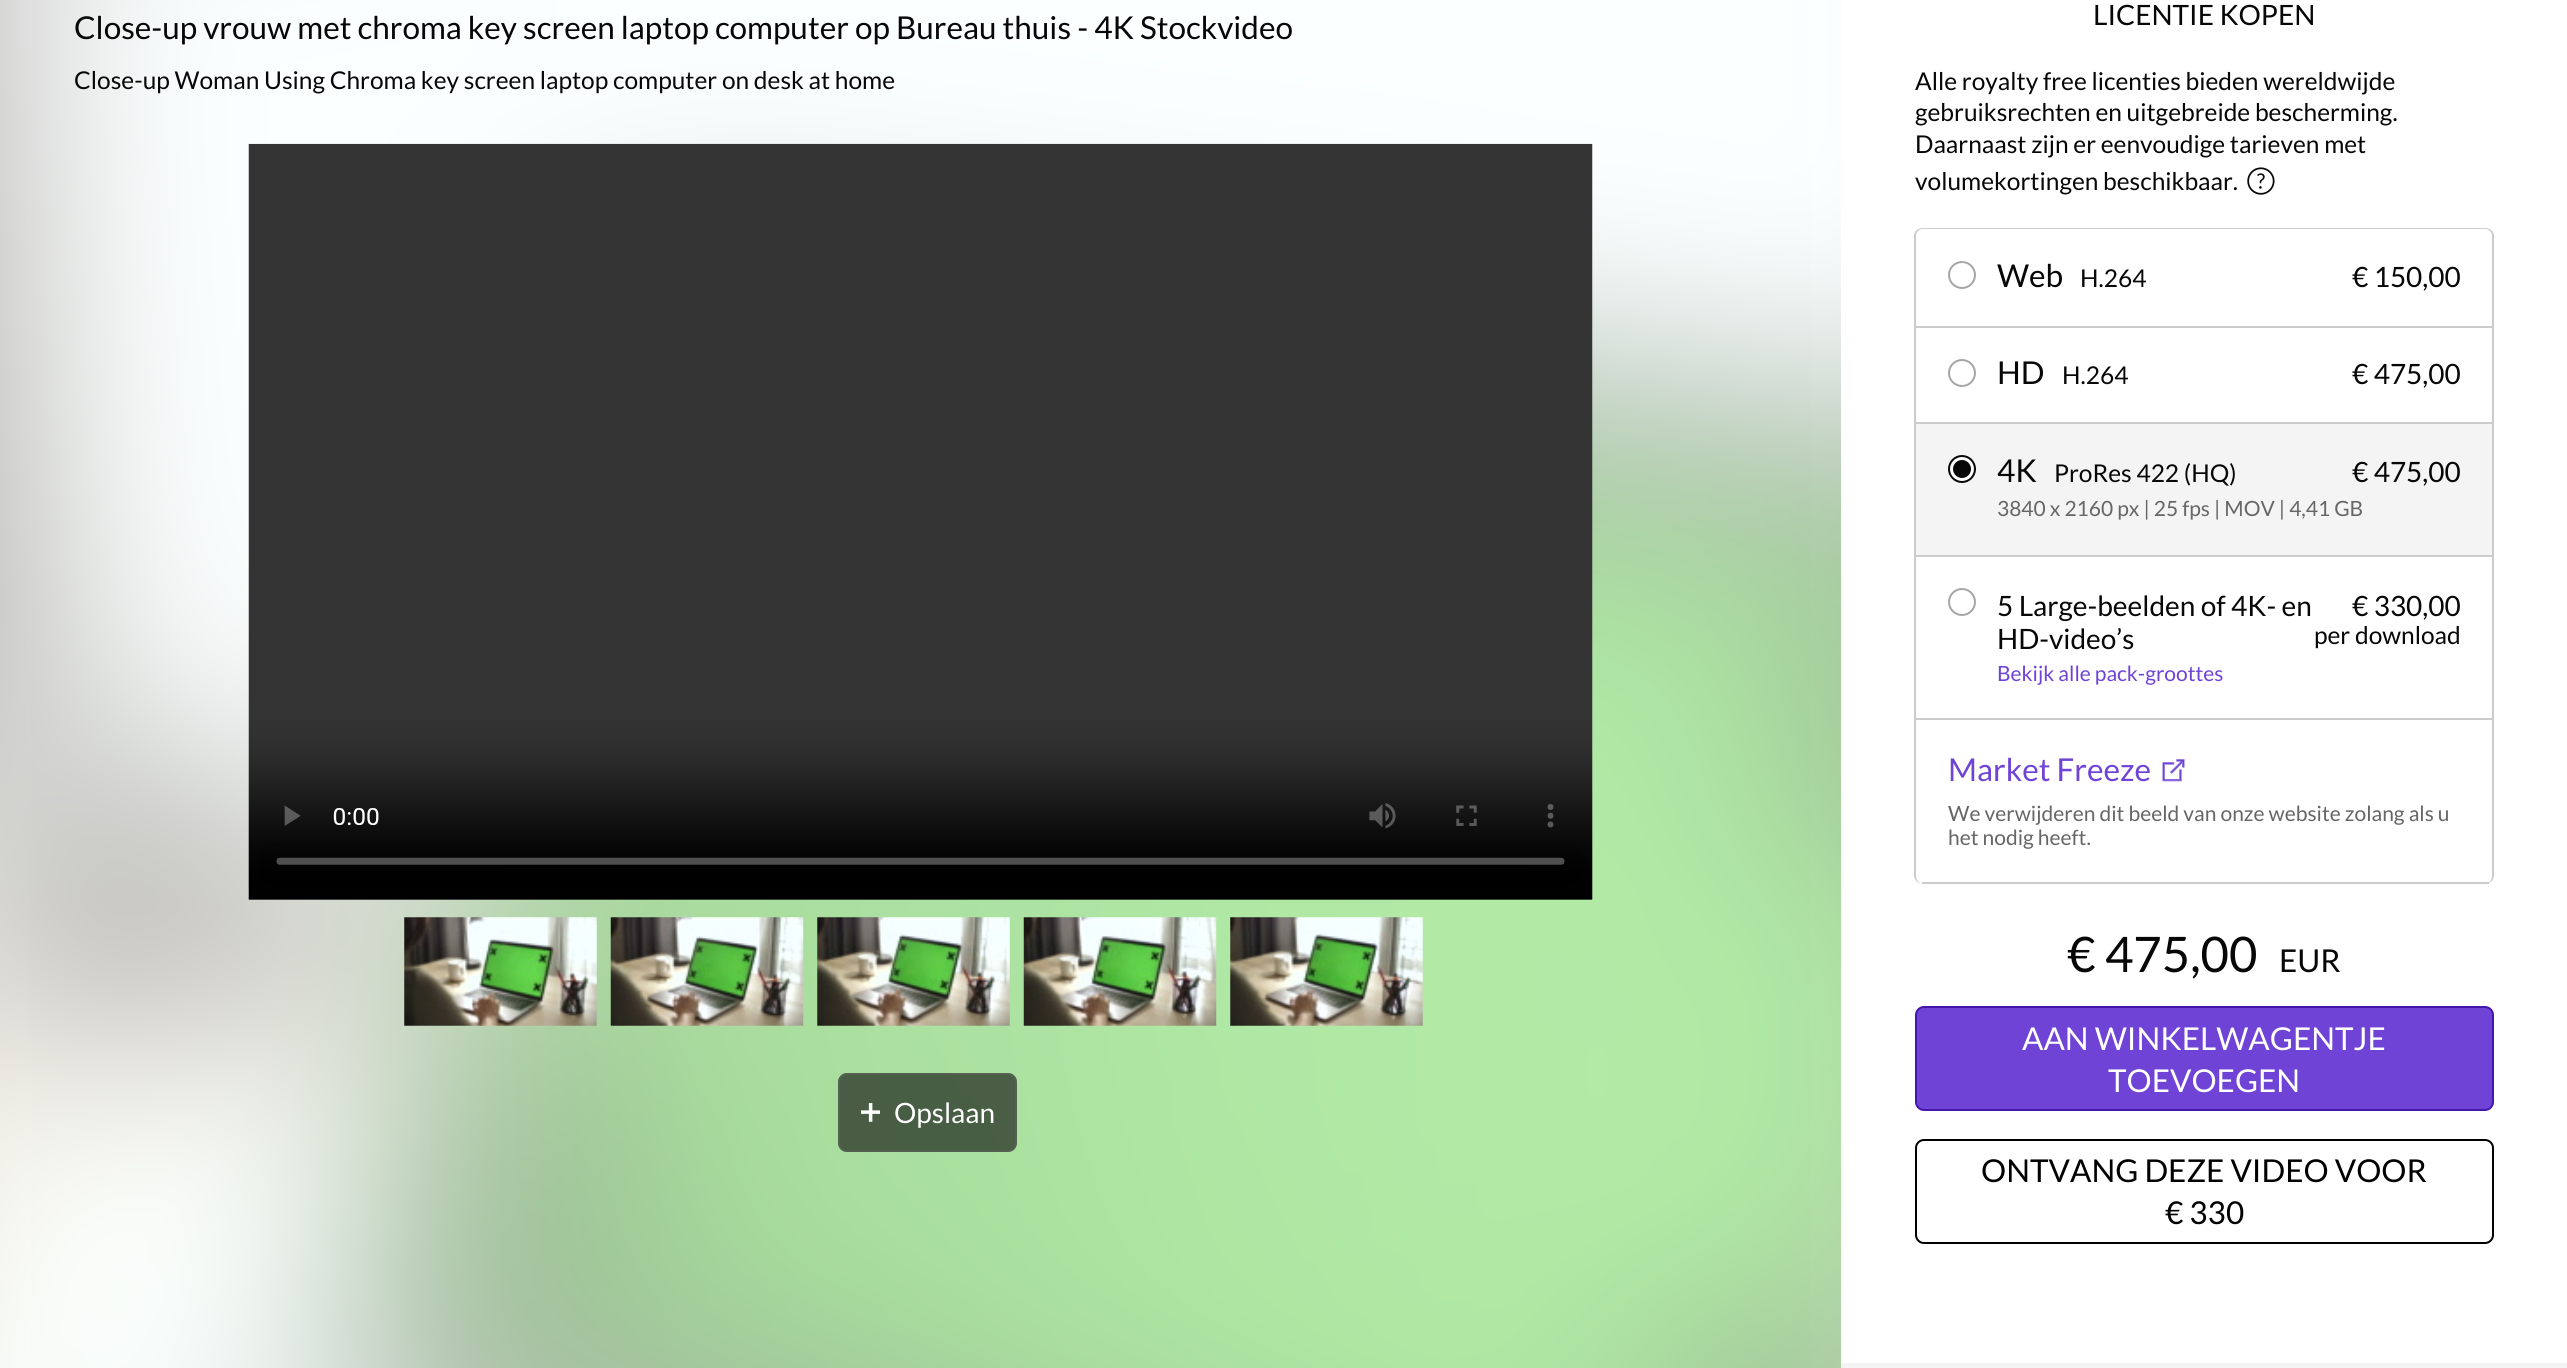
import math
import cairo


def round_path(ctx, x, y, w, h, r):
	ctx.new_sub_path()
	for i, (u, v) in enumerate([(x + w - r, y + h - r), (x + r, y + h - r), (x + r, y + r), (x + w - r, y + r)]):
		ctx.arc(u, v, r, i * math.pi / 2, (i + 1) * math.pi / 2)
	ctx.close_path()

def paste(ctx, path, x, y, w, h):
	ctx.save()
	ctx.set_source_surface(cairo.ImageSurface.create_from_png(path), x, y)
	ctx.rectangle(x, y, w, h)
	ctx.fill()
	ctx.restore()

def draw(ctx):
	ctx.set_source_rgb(1, 1, 1)
	ctx.paint()
	paste(ctx, 'media/1.png', 0, 0, 1841, 1368)
	ctx.select_font_face('Lato')
	ctx.set_font_size(31.5)
	ctx.set_source_rgb(0.031, 0.031, 0.031)
	ctx.move_to(74, 39)
	ctx.show_text('Close-up vrouw met chroma key screen laptop computer op Bureau thuis - 4K Stockvideo')
	ctx.set_font_size(24.5)
	ctx.move_to(74, 89)
	ctx.show_text('Close-up Woman Using Chroma key screen laptop computer on desk at home')
	paste(ctx, 'media/2.png', 248, 143, 1345, 757)
	paste(ctx, 'media/3.png', 404, 917, 193, 109)
	paste(ctx, 'media/4.png', 610, 917, 194, 109)
	paste(ctx, 'media/5.png', 817, 917, 193, 109)
	paste(ctx, 'media/6.png', 1023, 917, 194, 109)
	paste(ctx, 'media/7.png', 1230, 917, 193, 109)
	ctx.set_source_rgba(0.031, 0.031, 0.031, 0.6)
	round_path(ctx, 838, 1073, 179, 79, 9)
	ctx.fill()
	round_path(ctx, 839, 1074, 177, 77, 8)
	ctx.set_source_rgba(0.4, 0.4, 0.4, 0.4)
	ctx.stroke()
	paste(ctx, 'media/8.png', 861, 1103, 19, 19)
	ctx.set_font_size(28)
	ctx.set_source_rgb(1, 1, 1)
	ctx.move_to(894, 1123)
	ctx.show_text('Opslaan')
	ctx.set_source_rgb(0.031, 0.031, 0.031)
	ctx.move_to(2093, 25)
	ctx.show_text('LICENTIE KOPEN')
	ctx.set_font_size(24.5)
	for x, y, s in [
		(1915, 90, 'Alle royalty free licenties bieden wereldwijde'),
		(1915, 121, 'gebruiksrechten en uitgebreide bescherming.'),
		(1915, 153, 'Daarnaast zijn er eenvoudige tarieven met'),
		(1915, 190, 'volumekortingen beschikbaar.'),
	]:
		ctx.move_to(x, y)
		ctx.show_text(s)
	paste(ctx, 'media/9.png', 2247, 167, 28, 28)
	ctx.set_source_rgb(0.8, 0.8, 0.8)
	ctx.set_fill_rule(cairo.FILL_RULE_EVEN_ODD)
	ctx.new_path()
	ctx.move_to(1923, 228)
	ctx.line_to(2485, 228)
	ctx.curve_to(2490, 228, 2494, 231, 2494, 236)
	ctx.line_to(2494, 875)
	ctx.curve_to(2494, 880, 2490, 884, 2485, 884)
	ctx.line_to(1923, 884)
	ctx.curve_to(1918, 884, 1914, 880, 1914, 875)
	ctx.line_to(1914, 236)
	ctx.curve_to(1914, 231, 1918, 228, 1923, 228)
	ctx.close_path()
	ctx.move_to(1923, 229)
	ctx.line_to(2485, 229)
	ctx.curve_to(2489, 229, 2492, 232, 2492, 236)
	ctx.line_to(2492, 875)
	ctx.curve_to(2492, 880, 2489, 884, 2485, 884)
	ctx.line_to(1923, 884)
	ctx.curve_to(1919, 884, 1916, 880, 1916, 875)
	ctx.line_to(1916, 236)
	ctx.curve_to(1916, 232, 1919, 229, 1923, 229)
	ctx.close_path()
	ctx.fill()
	ctx.rectangle(1916, 326, 576, 2)
	ctx.fill()
	ctx.arc(1962, 275, 13, 0, 2 * math.pi)
	ctx.set_source_rgb(0.651, 0.651, 0.651)
	ctx.stroke()
	ctx.set_font_size(31.5)
	ctx.set_source_rgb(0.031, 0.031, 0.031)
	ctx.move_to(1997, 287)
	ctx.show_text('Web')
	ctx.set_font_size(24.5)
	ctx.move_to(2080, 287)
	ctx.show_text('H.264')
	ctx.set_font_size(28)
	ctx.move_to(2352, 287)
	ctx.show_text('€ 150,00')
	ctx.set_source_rgb(0.8, 0.8, 0.8)
	ctx.rectangle(1916, 422, 576, 2)
	ctx.fill()
	ctx.arc(1962, 373, 13, 0, 2 * math.pi)
	ctx.set_source_rgb(0.651, 0.651, 0.651)
	ctx.stroke()
	ctx.set_font_size(31.5)
	ctx.set_source_rgb(0.031, 0.031, 0.031)
	ctx.move_to(1997, 384)
	ctx.show_text('HD')
	ctx.set_font_size(24.5)
	ctx.move_to(2062, 384)
	ctx.show_text('H.264')
	ctx.set_font_size(28)
	ctx.move_to(2352, 384)
	ctx.show_text('€ 475,00')
	ctx.set_source_rgb(0.957, 0.957, 0.957)
	ctx.rectangle(1916, 424, 576, 131)
	ctx.fill()
	ctx.set_source_rgb(0.8, 0.8, 0.8)
	ctx.rectangle(1916, 555, 576, 2)
	ctx.fill()
	ctx.set_source_rgb(1, 1, 1)
	ctx.arc(1962, 469, 13, 0, 2 * math.pi)
	ctx.fill_preserve()
	ctx.set_source_rgb(0.031, 0.031, 0.031)
	ctx.stroke()
	ctx.arc(1962, 469, 9, 0, 2 * math.pi)
	ctx.fill()
	ctx.set_font_size(31.5)
	ctx.move_to(1997, 482)
	ctx.show_text('4K')
	ctx.set_font_size(24.5)
	ctx.move_to(2054, 482)
	ctx.show_text('ProRes 422 (HQ)')
	ctx.set_font_size(21)
	ctx.set_source_rgb(0.4, 0.4, 0.4)
	ctx.move_to(1997, 516)
	ctx.show_text('3840 x 2160 px | 25 fps | MOV | 4,41 GB')
	ctx.set_font_size(28)
	ctx.set_source_rgb(0.031, 0.031, 0.031)
	ctx.move_to(2352, 482)
	ctx.show_text('€ 475,00')
	ctx.set_source_rgb(0.8, 0.8, 0.8)
	ctx.rectangle(1916, 718, 576, 2)
	ctx.fill()
	ctx.arc(1962, 602, 13, 0, 2 * math.pi)
	ctx.set_source_rgb(0.651, 0.651, 0.651)
	ctx.stroke()
	ctx.set_source_rgb(0.031, 0.031, 0.031)
	ctx.move_to(1997, 616)
	ctx.show_text('5 Large-beelden of 4K- en')
	ctx.move_to(1997, 649)
	ctx.show_text('HD-video’s')
	ctx.set_font_size(21)
	ctx.set_source_rgb(0.435, 0.263, 0.839)
	ctx.move_to(1997, 681)
	ctx.show_text('Bekijk alle pack-groottes')
	ctx.set_font_size(28)
	ctx.set_source_rgb(0.031, 0.031, 0.031)
	ctx.move_to(2352, 616)
	ctx.show_text('€ 330,00')
	ctx.set_font_size(24.5)
	ctx.move_to(2314, 644)
	ctx.show_text('per download')
	ctx.set_source_rgb(0.8, 0.8, 0.8)
	ctx.rectangle(1922, 882, 567, 2)
	ctx.fill()
	ctx.set_font_size(31.5)
	ctx.set_source_rgb(0.435, 0.263, 0.839)
	ctx.move_to(1948, 781)
	ctx.show_text('Market Freeze')
	paste(ctx, 'media/10.png', 2162, 759, 23, 23)
	ctx.set_font_size(21)
	ctx.set_source_rgb(0.4, 0.4, 0.4)
	ctx.move_to(1948, 821)
	ctx.show_text('We verwijderen dit beeld van onze website zolang als u')
	ctx.move_to(1948, 845)
	ctx.show_text('het nodig heeft.')
	ctx.set_font_size(49)
	ctx.set_source_rgb(0.031, 0.031, 0.031)
	ctx.move_to(2067, 972)
	ctx.show_text('€ 475,00')
	ctx.set_font_size(31.5)
	ctx.move_to(2279, 972)
	ctx.show_text('EUR')
	ctx.set_source_rgb(0.435, 0.263, 0.839)
	round_path(ctx, 1916, 1007, 577, 103, 8)
	ctx.fill_preserve()
	ctx.set_source_rgb(0.263, 0.086, 0.675)
	ctx.stroke()
	ctx.set_source_rgb(1, 1, 1)
	ctx.move_to(2022, 1050)
	ctx.show_text('AAN WINKELWAGENTJE')
	ctx.move_to(2108, 1092)
	ctx.show_text('TOEVOEGEN')
	round_path(ctx, 1916, 1140, 577, 103, 8)
	ctx.set_source_rgb(0, 0, 0)
	ctx.stroke()
	ctx.move_to(1981, 1182)
	ctx.show_text('ONTVANG DEZE VIDEO VOOR')
	ctx.move_to(2165, 1224)
	ctx.show_text('€ 330')
	ctx.set_source_rgb(0.957, 0.957, 0.957)
	ctx.rectangle(1841, 1363, 726, 5)
	ctx.fill()


surface = cairo.ImageSurface(cairo.FORMAT_RGB24, 2567, 1368)
ctx = cairo.Context(surface)
options = cairo.FontOptions()
options.set_hint_metrics(cairo.HINT_METRICS_OFF)
options.set_hint_style(cairo.HINT_STYLE_NONE)
ctx.set_font_options(options)
ctx.set_miter_limit(4)
draw(ctx)
surface.write_to_png('image.png')
